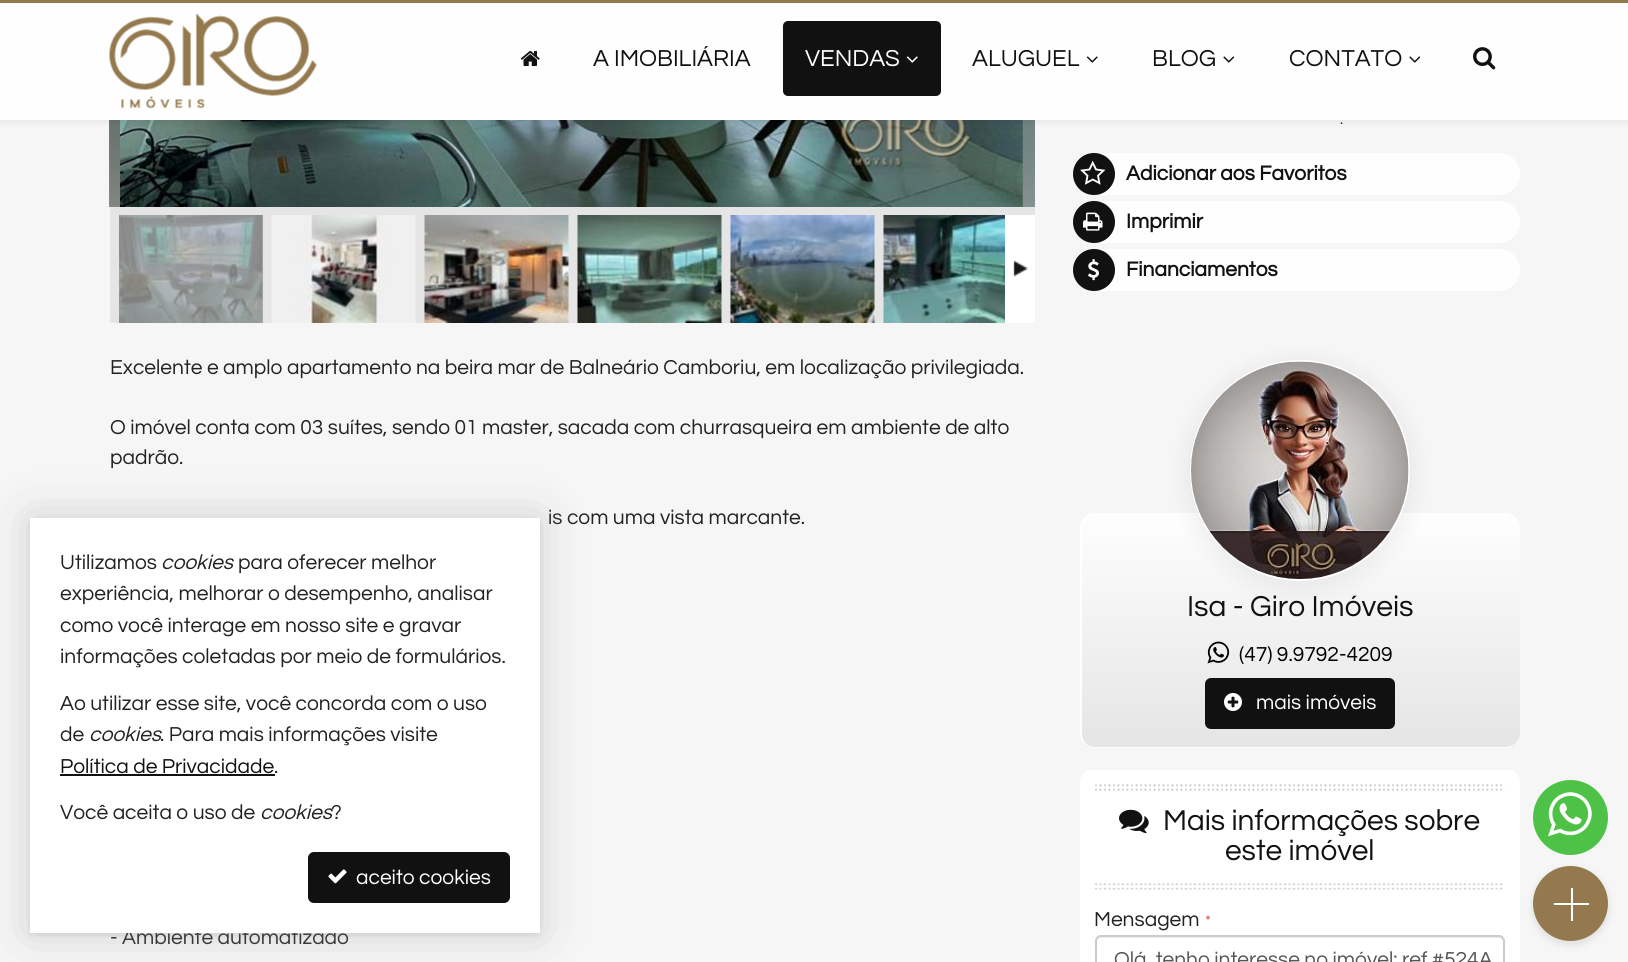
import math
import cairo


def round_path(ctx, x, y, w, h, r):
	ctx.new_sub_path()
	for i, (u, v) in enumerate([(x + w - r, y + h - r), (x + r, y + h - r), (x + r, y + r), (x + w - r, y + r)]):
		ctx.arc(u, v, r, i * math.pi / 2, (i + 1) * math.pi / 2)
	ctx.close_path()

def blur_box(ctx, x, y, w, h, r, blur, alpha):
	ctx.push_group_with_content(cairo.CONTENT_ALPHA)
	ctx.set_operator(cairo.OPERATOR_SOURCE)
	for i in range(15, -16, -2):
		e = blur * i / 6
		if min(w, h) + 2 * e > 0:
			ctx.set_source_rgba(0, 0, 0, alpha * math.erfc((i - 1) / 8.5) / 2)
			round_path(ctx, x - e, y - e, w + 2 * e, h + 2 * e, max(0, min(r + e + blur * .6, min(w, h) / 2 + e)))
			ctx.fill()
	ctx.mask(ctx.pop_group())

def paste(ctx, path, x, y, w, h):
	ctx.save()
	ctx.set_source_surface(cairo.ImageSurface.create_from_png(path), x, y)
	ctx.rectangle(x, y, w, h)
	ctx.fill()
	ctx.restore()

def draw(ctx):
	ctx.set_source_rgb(0.961, 0.961, 0.961)
	ctx.paint()
	ctx.set_source_rgb(0.898, 0.898, 0.898)
	ctx.rectangle(110, 120, 925, 95)
	ctx.fill()
	paste(ctx, 'media/7.png', 109, 120, 926, 87)
	paste(ctx, 'media/8.png', 120, 120, 903, 87)
	ctx.set_source_rgb(0, 0, 0)
	blur_box(ctx, 0, 3, 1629, 120, 0, 3, 0.06)
	ctx.set_source_rgb(0.996, 0.996, 0.996)
	ctx.rectangle(0, 3, 1628, 117)
	ctx.fill()
	ctx.set_source_rgb(0.576, 0.475, 0.302)
	ctx.rectangle(0, 0, 1628, 3)
	ctx.fill()
	paste(ctx, 'media/1.png', 109, 13, 208, 96)
	paste(ctx, 'media/2.png', 520, 51, 20, 15)
	ctx.select_font_face('Questrial')
	ctx.set_font_size(24)
	ctx.set_source_rgb(0.067, 0.067, 0.067)
	ctx.move_to(593, 66)
	ctx.show_text('A IMOBILIÁRIA')
	round_path(ctx, 783, 21, 158, 75, 5)
	ctx.fill()
	ctx.set_source_rgb(1, 1, 1)
	ctx.move_to(805, 66)
	ctx.show_text('VENDAS')
	paste(ctx, 'media/3.png', 906, 56, 12, 7)
	ctx.set_source_rgb(0.067, 0.067, 0.067)
	ctx.move_to(972, 66)
	ctx.show_text('ALUGUEL')
	paste(ctx, 'media/4.png', 1086, 56, 12, 7)
	ctx.move_to(1152, 66)
	ctx.show_text('BLOG')
	paste(ctx, 'media/5.png', 1223, 56, 12, 7)
	ctx.move_to(1289, 66)
	ctx.show_text('CONTATO')
	paste(ctx, 'media/5.png', 1409, 56, 12, 7)
	paste(ctx, 'media/6.png', 1473, 47, 23, 23)
	ctx.set_source_rgb(0.898, 0.898, 0.898)
	ctx.rectangle(110, 215, 774, 108)
	ctx.fill()
	ctx.set_source_rgb(0.71, 0.71, 0.71)
	ctx.rectangle(119, 215, 144, 108)
	ctx.fill()
	paste(ctx, 'media/9.png', 119, 215, 144, 108)
	paste(ctx, 'media/10.png', 271, 215, 145, 108)
	paste(ctx, 'media/11.png', 424, 215, 145, 108)
	paste(ctx, 'media/12.png', 577, 215, 145, 108)
	paste(ctx, 'media/13.png', 730, 215, 145, 108)
	paste(ctx, 'media/14.png', 883, 215, 122, 108)
	ctx.set_source_rgb(1, 1, 1)
	ctx.rectangle(1005, 215, 30, 108)
	ctx.fill()
	paste(ctx, 'media/15.png', 1013, 260, 15, 17)
	ctx.set_font_size(15)
	ctx.set_source_rgb(0.133, 0.133, 0.133)
	ctx.move_to(1340, 124)
	ctx.show_text('.')
	ctx.set_source_rgb(0.996, 0.996, 0.996)
	round_path(ctx, 1080, 153, 440, 42, 21)
	ctx.fill()
	ctx.set_source_rgb(0.067, 0.067, 0.067)
	ctx.arc(1094, 174, 21, 0, 2 * math.pi)
	ctx.fill()
	paste(ctx, 'media/16.png', 1080, 160, 26, 25)
	ctx.select_font_face('Questrial', cairo.FONT_SLANT_NORMAL, cairo.FONT_WEIGHT_BOLD)
	ctx.set_font_size(21)
	ctx.move_to(1126, 180)
	ctx.show_text('Adicionar aos Favoritos')
	ctx.set_source_rgb(0.996, 0.996, 0.996)
	round_path(ctx, 1080, 201, 440, 42, 21)
	ctx.fill()
	ctx.set_source_rgb(0.067, 0.067, 0.067)
	ctx.arc(1094, 222, 21, 0, 2 * math.pi)
	ctx.fill()
	paste(ctx, 'media/17.png', 1083, 212, 20, 19)
	ctx.move_to(1126, 228)
	ctx.show_text('Imprimir')
	ctx.set_source_rgb(0.996, 0.996, 0.996)
	round_path(ctx, 1080, 249, 440, 42, 21)
	ctx.fill()
	ctx.set_source_rgb(0.067, 0.067, 0.067)
	ctx.arc(1094, 270, 21, 0, 2 * math.pi)
	ctx.fill()
	paste(ctx, 'media/18.png', 1088, 259, 11, 22)
	ctx.move_to(1126, 276)
	ctx.show_text('Financiamentos')
	ctx.select_font_face('Questrial')
	ctx.set_source_rgb(0.133, 0.133, 0.133)
	for x, y, s in [
		(110, 374, 'Excelente e amplo apartamento na beira mar de Balneário Camboriu, em localização privilegiada.'),
		(110, 434, 'O imóvel conta com 03 suítes, sendo 01 master, sacada com churrasqueira em ambiente de alto'),
		(110, 464, 'padrão.'),
		(548, 524, 'is com uma vista marcante.'),
		(110, 944, '- Ambiente automatizado'),
	]:
		ctx.move_to(x, y)
		ctx.show_text(s)
	ctx.save()
	round_path(ctx, 1080, 513, 440, 236, 15)
	ctx.clip()
	gradient = cairo.LinearGradient(1301, 513, 1301, 747)
	gradient.add_color_stop_rgba(0, 0.996, 0.996, 0.996, 1)
	gradient.add_color_stop_rgba(1, 0.898, 0.898, 0.898, 1)
	ctx.set_source(gradient)
	ctx.new_path()
	ctx.move_to(1095, 513)
	ctx.line_to(1505, 513)
	ctx.curve_to(1513.5, 513, 1520, 519.5, 1520, 528)
	ctx.line_to(1520, 747)
	ctx.line_to(1080, 747)
	ctx.line_to(1080, 528)
	ctx.curve_to(1080, 519.5, 1086.5, 513, 1095, 513)
	ctx.close_path()
	ctx.fill()
	ctx.restore()
	ctx.set_source_rgb(0, 0, 0)
	blur_box(ctx, 1190, 365, 220, 220, 110, 13.5, 0.08)
	round_path(ctx, 1191, 361, 218, 219, 109)
	ctx.set_source_rgb(1, 1, 1)
	ctx.stroke()
	paste(ctx, 'media/19.png', 1191, 361, 218, 218)
	ctx.set_source_rgb(0.996, 0.996, 0.996)
	ctx.new_path()
	ctx.move_to(1520, 738)
	ctx.curve_to(1518, 744, 1512, 748, 1504, 748)
	ctx.line_to(1095, 748)
	ctx.curve_to(1091, 748, 1087, 746, 1084, 744)
	ctx.line_to(1086, 743)
	ctx.curve_to(1088, 745, 1091, 747, 1095, 747)
	ctx.line_to(1504, 747)
	ctx.curve_to(1512, 747, 1518, 743, 1520, 737)
	ctx.close_path()
	ctx.fill()
	ctx.set_source_rgb(1, 1, 1)
	ctx.new_path()
	ctx.move_to(1095, 513)
	ctx.curve_to(1087, 513, 1080, 520, 1080, 528)
	ctx.line_to(1080, 734)
	ctx.curve_to(1080, 738, 1082, 742, 1084, 744)
	ctx.line_to(1086, 743)
	ctx.curve_to(1083, 741, 1082, 737, 1082, 734)
	ctx.line_to(1082, 528)
	ctx.curve_to(1082, 520, 1088, 513, 1095, 513)
	ctx.close_path()
	ctx.fill()
	ctx.set_font_size(30)
	ctx.set_source_rgb(0.067, 0.067, 0.067)
	ctx.move_to(1187, 616)
	ctx.show_text('Isa - Giro Imóveis')
	paste(ctx, 'media/20.png', 1207, 641, 23, 23)
	ctx.set_font_size(21)
	ctx.set_source_rgb(0, 0, 0)
	ctx.move_to(1239, 661)
	ctx.show_text('(47) 9.9792-4209')
	ctx.set_source_rgb(0.067, 0.067, 0.067)
	round_path(ctx, 1205, 678, 190, 51, 6)
	ctx.fill()
	paste(ctx, 'media/21.png', 1224, 693, 18, 18)
	ctx.set_source_rgb(1, 1, 1)
	ctx.move_to(1256, 709)
	ctx.show_text('mais imóveis')
	round_path(ctx, 1080, 770, 440, 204, 12)
	ctx.fill()
	paste(ctx, 'media/22.png', 1094, 883, 409, 7)
	paste(ctx, 'media/23.png', 1095, 784, 410, 7)
	paste(ctx, 'media/24.png', 1119, 809, 30, 25)
	ctx.set_font_size(29.75)
	ctx.set_source_rgb(0.067, 0.067, 0.067)
	ctx.move_to(1163, 830)
	ctx.show_text('Mais informações sobre')
	ctx.move_to(1225, 860)
	ctx.show_text('este imóvel')
	ctx.set_font_size(21)
	ctx.set_source_rgb(0.133, 0.133, 0.133)
	ctx.move_to(1094, 926)
	ctx.show_text('Mensagem')
	ctx.set_font_size(16)
	ctx.set_source_rgb(0.867, 0.267, 0.267)
	ctx.move_to(1205, 926)
	ctx.show_text('*')
	ctx.set_source_rgb(0.925, 0.925, 0.925)
	ctx.new_path()
	ctx.move_to(1101, 938)
	ctx.line_to(1498, 938)
	ctx.curve_to(1501, 938, 1503, 940, 1503, 942)
	ctx.line_to(1503, 941)
	ctx.curve_to(1503, 938, 1501, 936, 1498, 936)
	ctx.line_to(1102, 936)
	ctx.curve_to(1100, 936, 1098, 938, 1097, 940)
	ctx.curve_to(1098, 939, 1100, 938, 1101, 938)
	ctx.close_path()
	ctx.fill()
	round_path(ctx, 1096, 936, 408, 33, 5)
	ctx.set_source_rgb(0.8, 0.8, 0.8)
	ctx.stroke()
	ctx.set_font_size(21)
	ctx.set_source_rgb(0.333, 0.333, 0.333)
	ctx.move_to(1114, 966)
	ctx.show_text('Olá, tenho interesse no imóvel: ref #524A')
	ctx.set_source_rgb(0, 0, 0)
	blur_box(ctx, 30, 521, 510, 415, 0, 3, 0.07)
	ctx.set_source_rgb(0.624, 0.624, 0.624)
	blur_box(ctx, 30, 518, 510, 415, 0, 22.5, 0.44)
	ctx.set_source_rgb(1, 1, 1)
	ctx.rectangle(30, 518, 510, 415)
	ctx.fill()
	ctx.set_source_rgb(0.133, 0.133, 0.133)
	ctx.move_to(60, 569)
	ctx.show_text('Utilizamos')
	ctx.select_font_face('Questrial', cairo.FONT_SLANT_ITALIC)
	ctx.move_to(161, 569)
	ctx.show_text('cookies')
	ctx.select_font_face('Questrial')
	for x, y, s in [
		(238, 569, 'para oferecer melhor'),
		(60, 600, 'experiência, melhorar o desempenho, analisar'),
		(60, 632, 'como você interage em nosso site e gravar'),
		(60, 663, 'informações coletadas por meio de formulários.'),
		(60, 710, 'Ao utilizar esse site, você concorda com o uso'),
		(60, 741, 'de'),
	]:
		ctx.move_to(x, y)
		ctx.show_text(s)
	ctx.select_font_face('Questrial', cairo.FONT_SLANT_ITALIC)
	ctx.move_to(89, 741)
	ctx.show_text('cookies')
	ctx.select_font_face('Questrial')
	ctx.move_to(160, 741)
	ctx.show_text('. Para mais informações visite')
	ctx.set_source_rgb(0.067, 0.067, 0.067)
	ctx.move_to(60, 773)
	ctx.show_text('Política de Privacidade')
	ctx.rectangle(60, 774, 215, 2)
	ctx.fill()
	ctx.set_source_rgb(0.133, 0.133, 0.133)
	ctx.move_to(274, 773)
	ctx.show_text('.')
	ctx.move_to(60, 819)
	ctx.show_text('Você aceita o uso de')
	ctx.select_font_face('Questrial', cairo.FONT_SLANT_ITALIC)
	ctx.move_to(260, 819)
	ctx.show_text('cookies')
	ctx.select_font_face('Questrial')
	ctx.move_to(331, 819)
	ctx.show_text('?')
	ctx.set_source_rgb(0.067, 0.067, 0.067)
	round_path(ctx, 308, 852, 202, 51, 6)
	ctx.fill()
	paste(ctx, 'media/25.png', 328, 869, 19, 15)
	ctx.set_source_rgb(1, 1, 1)
	ctx.move_to(356, 884)
	ctx.show_text('aceito cookies')
	ctx.set_source_rgb(0.302, 0.761, 0.278)
	ctx.new_path()
	ctx.arc(1570.5, 817.5, 37.5, 0, 2 * math.pi)
	ctx.fill()
	paste(ctx, 'media/26.png', 1548, 792, 44, 45)
	ctx.save()
	ctx.set_fill_rule(cairo.FILL_RULE_EVEN_ODD)
	ctx.new_path()
	ctx.move_to(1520, 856)
	ctx.line_to(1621, 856)
	ctx.line_to(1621, 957)
	ctx.line_to(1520, 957)
	ctx.close_path()
	ctx.move_to(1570.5, 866)
	ctx.curve_to(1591, 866, 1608, 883, 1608, 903.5)
	ctx.curve_to(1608, 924, 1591, 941, 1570.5, 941)
	ctx.curve_to(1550, 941, 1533, 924, 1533, 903.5)
	ctx.curve_to(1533, 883, 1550, 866, 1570.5, 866)
	ctx.close_path()
	ctx.clip()
	ctx.set_source_rgb(0, 0, 0)
	blur_box(ctx, 1533, 869, 75, 75, 37.5, 4, 0.11)
	ctx.restore()
	ctx.set_source_rgb(0.576, 0.475, 0.302)
	ctx.arc(1570.5, 903.5, 37.5, 0, 2 * math.pi)
	ctx.fill()
	ctx.set_source_rgb(1, 1, 1)
	ctx.rectangle(1554, 903, 35, 2)
	ctx.fill()
	ctx.rectangle(1571, 888, 2, 33)
	ctx.fill()


surface = cairo.ImageSurface(cairo.FORMAT_RGB24, 1628, 962)
ctx = cairo.Context(surface)
options = cairo.FontOptions()
options.set_hint_metrics(cairo.HINT_METRICS_OFF)
options.set_hint_style(cairo.HINT_STYLE_NONE)
ctx.set_font_options(options)
ctx.set_miter_limit(4)
draw(ctx)
surface.write_to_png('image.png')
